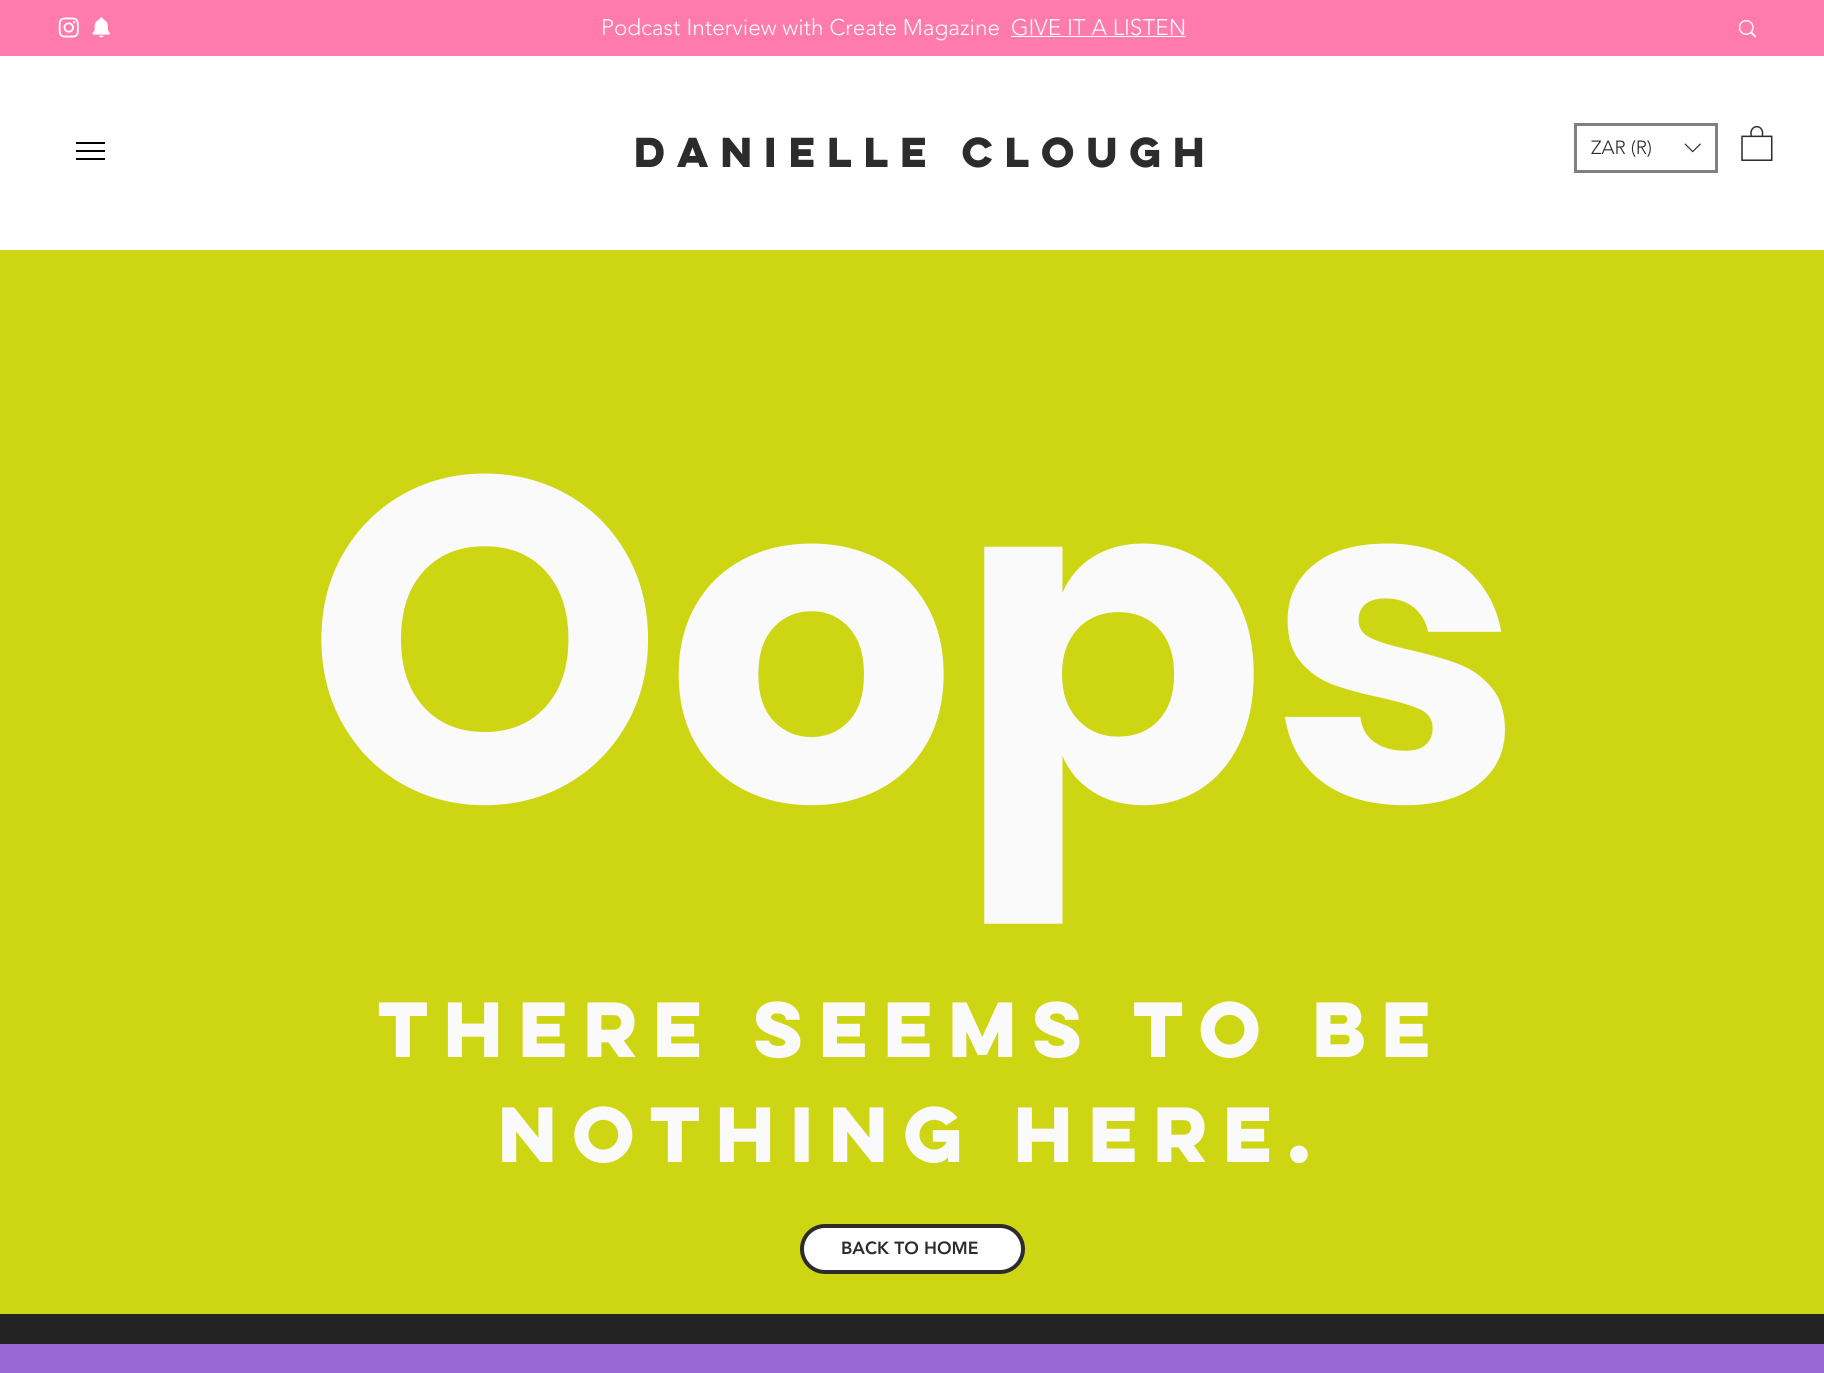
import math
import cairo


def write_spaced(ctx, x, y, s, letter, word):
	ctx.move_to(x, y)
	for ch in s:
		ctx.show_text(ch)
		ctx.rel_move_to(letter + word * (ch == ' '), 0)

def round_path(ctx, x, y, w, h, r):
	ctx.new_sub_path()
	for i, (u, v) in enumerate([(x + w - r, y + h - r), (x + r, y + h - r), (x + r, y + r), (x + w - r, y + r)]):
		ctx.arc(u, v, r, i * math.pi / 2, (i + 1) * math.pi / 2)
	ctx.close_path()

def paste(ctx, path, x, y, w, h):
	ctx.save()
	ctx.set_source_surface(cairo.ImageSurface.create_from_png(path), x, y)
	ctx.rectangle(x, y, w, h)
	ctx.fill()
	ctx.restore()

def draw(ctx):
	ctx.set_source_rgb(1, 1, 1)
	ctx.paint()
	ctx.set_source_rgb(1, 0.482, 0.682)
	ctx.rectangle(0, 0, 1824, 56)
	ctx.fill()
	paste(ctx, 'media/1.png', 58, 17, 21, 21)
	paste(ctx, 'media/2.png', 92, 17, 18, 21)
	ctx.select_font_face('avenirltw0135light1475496 Light')
	ctx.set_font_size(22.5)
	ctx.set_source_rgb(0.98, 0.98, 0.98)
	ctx.move_to(601, 35)
	ctx.show_text('Podcast Interview with Create Magazine')
	ctx.move_to(1011, 35)
	ctx.show_text('GIVE IT A LISTEN')
	ctx.set_source_rgb(1, 1, 1)
	ctx.rectangle(1011, 36, 175, 1)
	ctx.fill()
	paste(ctx, 'media/3.png', 1739, 20, 17, 18)
	ctx.set_source_rgb(0, 0, 0)
	ctx.rectangle(76, 158, 29, 2)
	ctx.rectangle(76, 142, 29, 2)
	ctx.rectangle(76, 150, 29, 2)
	ctx.fill()
	ctx.select_font_face('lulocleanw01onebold', cairo.FONT_SLANT_NORMAL, cairo.FONT_WEIGHT_BOLD)
	ctx.set_font_size(37.5)
	ctx.set_source_rgb(0.173, 0.173, 0.173)
	write_spaced(ctx, 634, 167, 'DANIELLE CLOUGH', 3.75, 0)
	ctx.rectangle(1575.5, 124.5, 141, 47)
	ctx.set_source_rgb(0.502, 0.502, 0.502)
	ctx.set_line_width(3)
	ctx.stroke()
	ctx.select_font_face('avenirltw0135light1475496 Light')
	ctx.set_font_size(19)
	ctx.set_source_rgb(0.173, 0.173, 0.173)
	ctx.move_to(1591, 154)
	ctx.show_text('ZAR (R)')
	paste(ctx, 'media/4.png', 1684, 143, 17, 10)
	paste(ctx, 'media/5.png', 1741, 125, 32, 36)
	ctx.set_source_rgb(0.808, 0.839, 0.082)
	ctx.rectangle(0, 250, 1824, 1064)
	ctx.fill()
	ctx.select_font_face('Poppins', cairo.FONT_SLANT_NORMAL, cairo.FONT_WEIGHT_BOLD)
	ctx.set_font_size(457.5)
	ctx.set_source_rgb(0.98, 0.98, 0.98)
	ctx.move_to(304, 802)
	ctx.show_text('Oops')
	ctx.select_font_face('lulocleanw01onebold', cairo.FONT_SLANT_NORMAL, cairo.FONT_WEIGHT_BOLD)
	ctx.set_font_size(70)
	ctx.move_to(378, 1057)
	ctx.show_text('There seems to be')
	ctx.move_to(498, 1162)
	ctx.show_text('nothing here.')
	ctx.set_source_rgb(1, 1, 1)
	round_path(ctx, 802, 1226, 221, 46, 23)
	ctx.fill_preserve()
	ctx.set_source_rgb(0.173, 0.173, 0.173)
	ctx.set_line_width(4)
	ctx.stroke()
	ctx.select_font_face('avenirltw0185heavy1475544 Black')
	ctx.set_font_size(17.5)
	ctx.move_to(841, 1254)
	ctx.show_text('BACK TO HOME')
	ctx.set_source_rgb(0.141, 0.137, 0.137)
	ctx.rectangle(0, 1314, 1824, 30)
	ctx.fill()
	ctx.set_source_rgb(0.604, 0.408, 0.835)
	ctx.rectangle(0, 1344, 1824, 29)
	ctx.fill()


surface = cairo.ImageSurface(cairo.FORMAT_RGB24, 1824, 1373)
ctx = cairo.Context(surface)
options = cairo.FontOptions()
options.set_hint_metrics(cairo.HINT_METRICS_OFF)
options.set_hint_style(cairo.HINT_STYLE_NONE)
ctx.set_font_options(options)
ctx.set_miter_limit(4)
draw(ctx)
surface.write_to_png('image.png')
